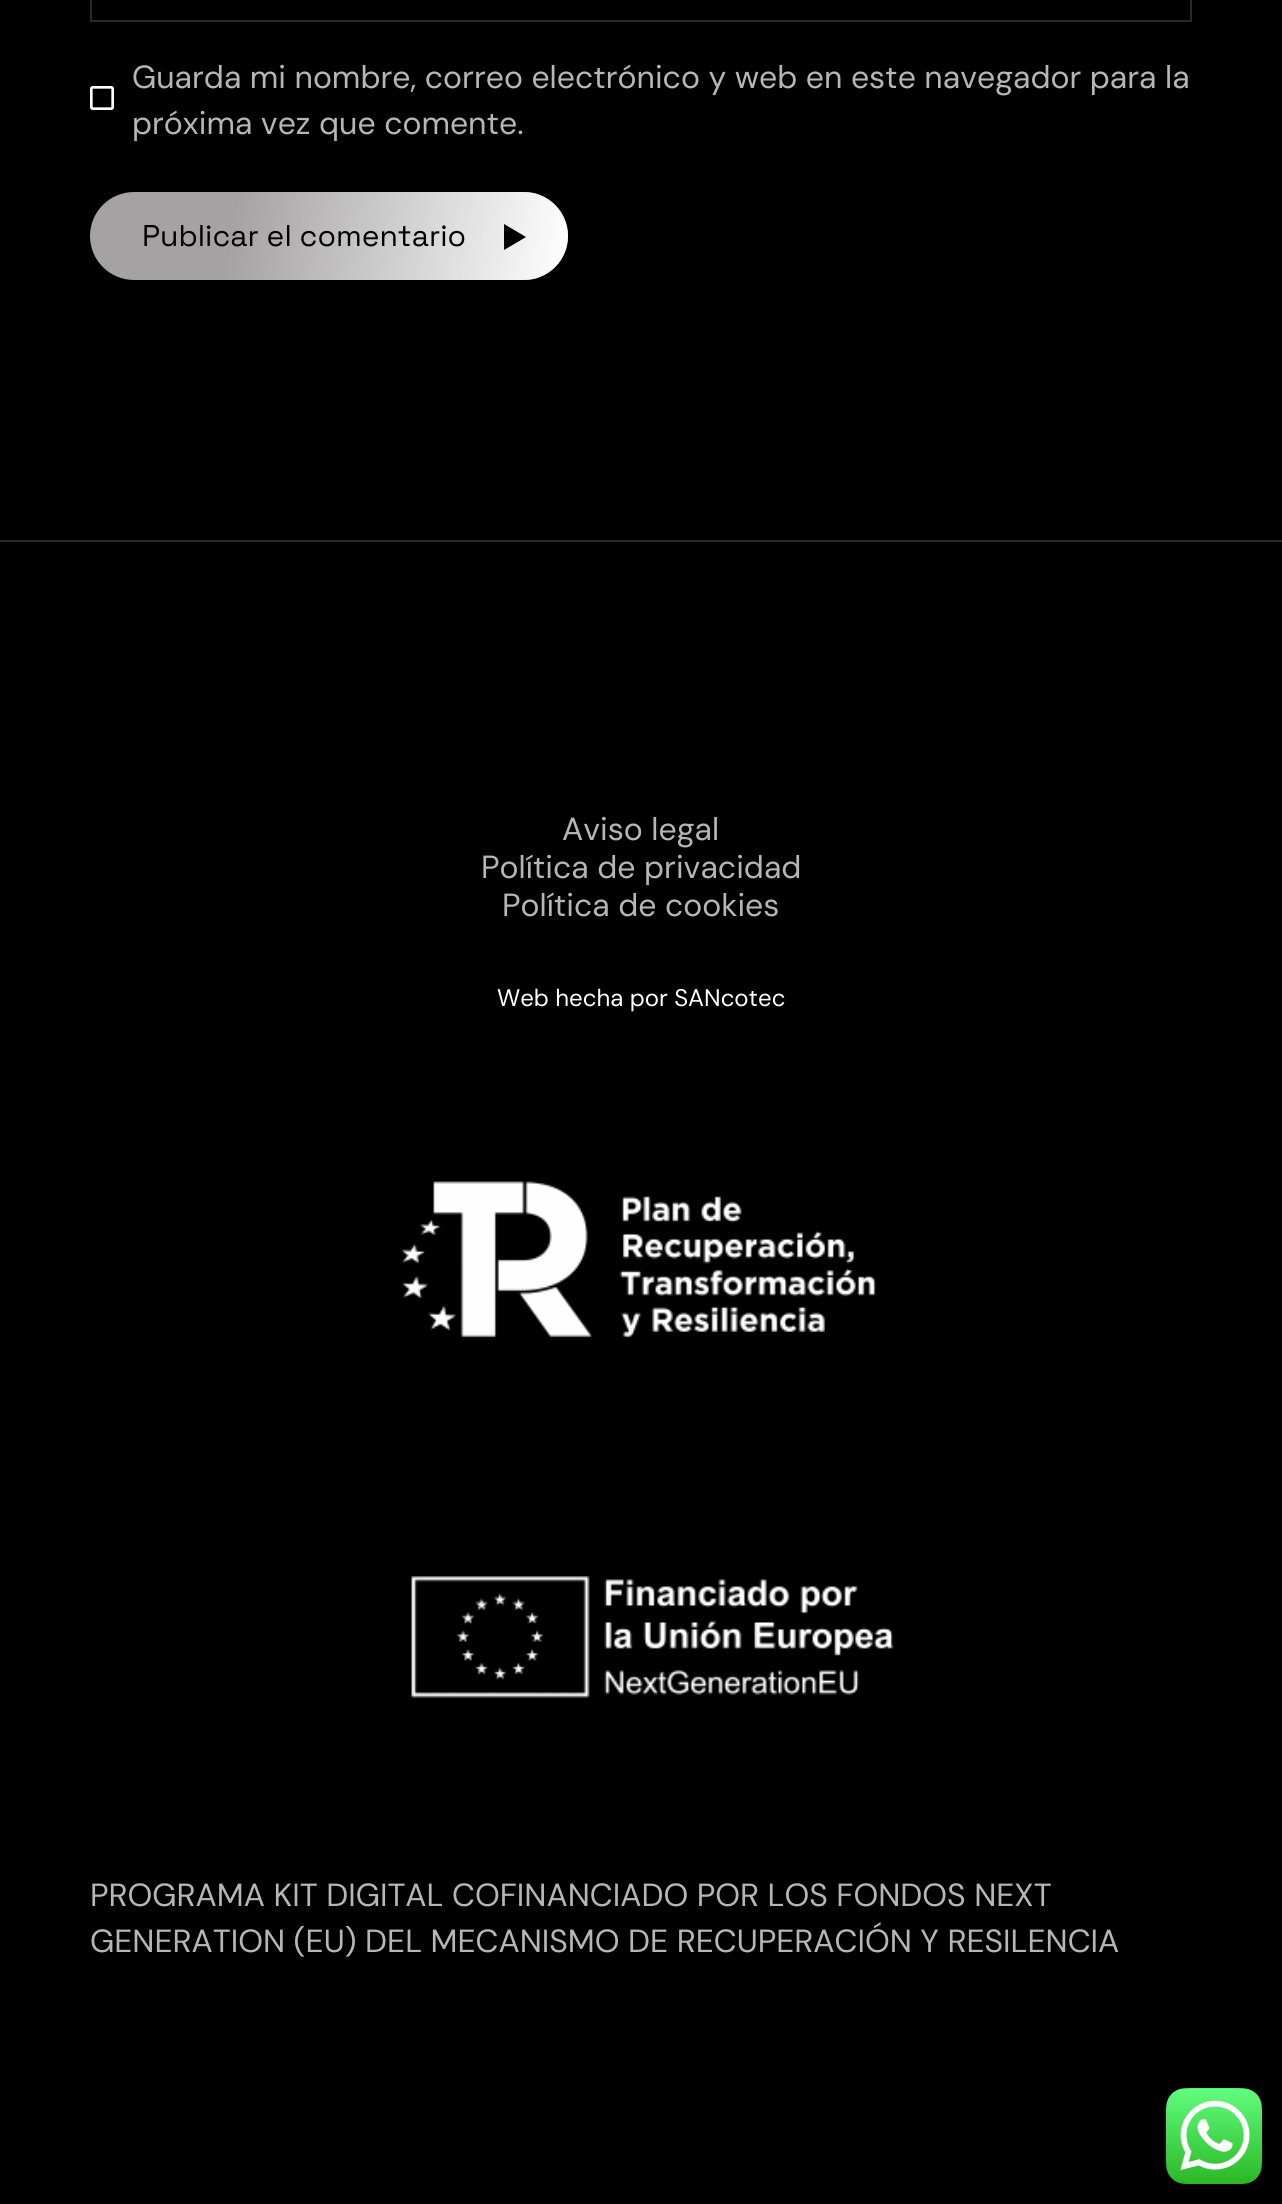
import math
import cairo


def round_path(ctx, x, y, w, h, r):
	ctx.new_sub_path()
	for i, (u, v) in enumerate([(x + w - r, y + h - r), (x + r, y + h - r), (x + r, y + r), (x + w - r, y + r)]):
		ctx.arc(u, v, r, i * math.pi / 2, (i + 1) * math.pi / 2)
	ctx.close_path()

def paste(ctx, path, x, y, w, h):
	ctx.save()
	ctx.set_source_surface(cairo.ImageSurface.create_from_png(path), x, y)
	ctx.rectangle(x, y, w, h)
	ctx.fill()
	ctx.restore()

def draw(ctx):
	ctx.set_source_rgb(0, 0, 0)
	ctx.paint()
	ctx.rectangle(91, -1, 1100, 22)
	ctx.set_source_rgb(0.157, 0.157, 0.157)
	ctx.stroke()
	paste(ctx, 'media/1.png', 90, 86, 24, 24)
	ctx.select_font_face('DM Sans')
	ctx.set_font_size(32)
	ctx.set_source_rgb(0.714, 0.714, 0.714)
	ctx.move_to(132, 88)
	ctx.show_text('Guarda mi nombre, correo electrónico y web en este navegador para la')
	ctx.move_to(132, 134)
	ctx.show_text('próxima vez que comente.')
	ctx.set_source_rgb(0.643, 0.635, 0.635)
	round_path(ctx, 90, 192, 478, 88, 44)
	ctx.fill()
	gradient = cairo.LinearGradient(89, 198, 569, 274)
	gradient.add_color_stop_rgba(0.3, 1, 1, 1, 0)
	gradient.add_color_stop_rgba(1, 1, 1, 1, 1)
	ctx.set_source(gradient)
	round_path(ctx, 90, 192, 478, 88, 44)
	ctx.fill()
	ctx.select_font_face('Space Grotesk Light')
	ctx.set_font_size(30)
	ctx.set_source_rgb(0, 0, 0)
	ctx.move_to(142, 246)
	ctx.show_text('Publicar el comentario')
	ctx.new_path()
	ctx.move_to(526, 237)
	ctx.line_to(504, 224)
	ctx.line_to(504, 250)
	ctx.close_path()
	ctx.fill()
	ctx.set_source_rgb(0.157, 0.157, 0.157)
	ctx.rectangle(0, 540, 1282, 2)
	ctx.fill()
	ctx.select_font_face('DM Sans')
	ctx.set_font_size(32)
	ctx.set_source_rgb(0.714, 0.714, 0.714)
	for x, y, s in [
		(562, 840, 'Aviso legal'),
		(481, 878, 'Política de privacidad'),
		(502, 916, 'Política de cookies'),
	]:
		ctx.move_to(x, y)
		ctx.show_text(s)
	ctx.set_font_size(24)
	ctx.set_source_rgb(1, 1, 1)
	ctx.move_to(497, 1006)
	ctx.show_text('Web hecha por SANcotec')
	paste(ctx, 'media/2.png', 401, 1181, 475, 157)
	paste(ctx, 'media/3.png', 411, 1576, 483, 123)
	ctx.set_font_size(32)
	ctx.set_source_rgb(0.714, 0.714, 0.714)
	ctx.move_to(90, 1906)
	ctx.show_text('PROGRAMA KIT DIGITAL COFINANCIADO POR LOS FONDOS NEXT')
	ctx.move_to(90, 1952)
	ctx.show_text('GENERATION (EU) DEL MECANISMO DE RECUPERACIÓN Y RESILENCIA')
	paste(ctx, 'media/4.png', 1166, 2088, 96, 96)


surface = cairo.ImageSurface(cairo.FORMAT_RGB24, 1282, 2204)
ctx = cairo.Context(surface)
options = cairo.FontOptions()
options.set_hint_metrics(cairo.HINT_METRICS_OFF)
options.set_hint_style(cairo.HINT_STYLE_NONE)
ctx.set_font_options(options)
ctx.set_miter_limit(4)
draw(ctx)
surface.write_to_png('image.png')
